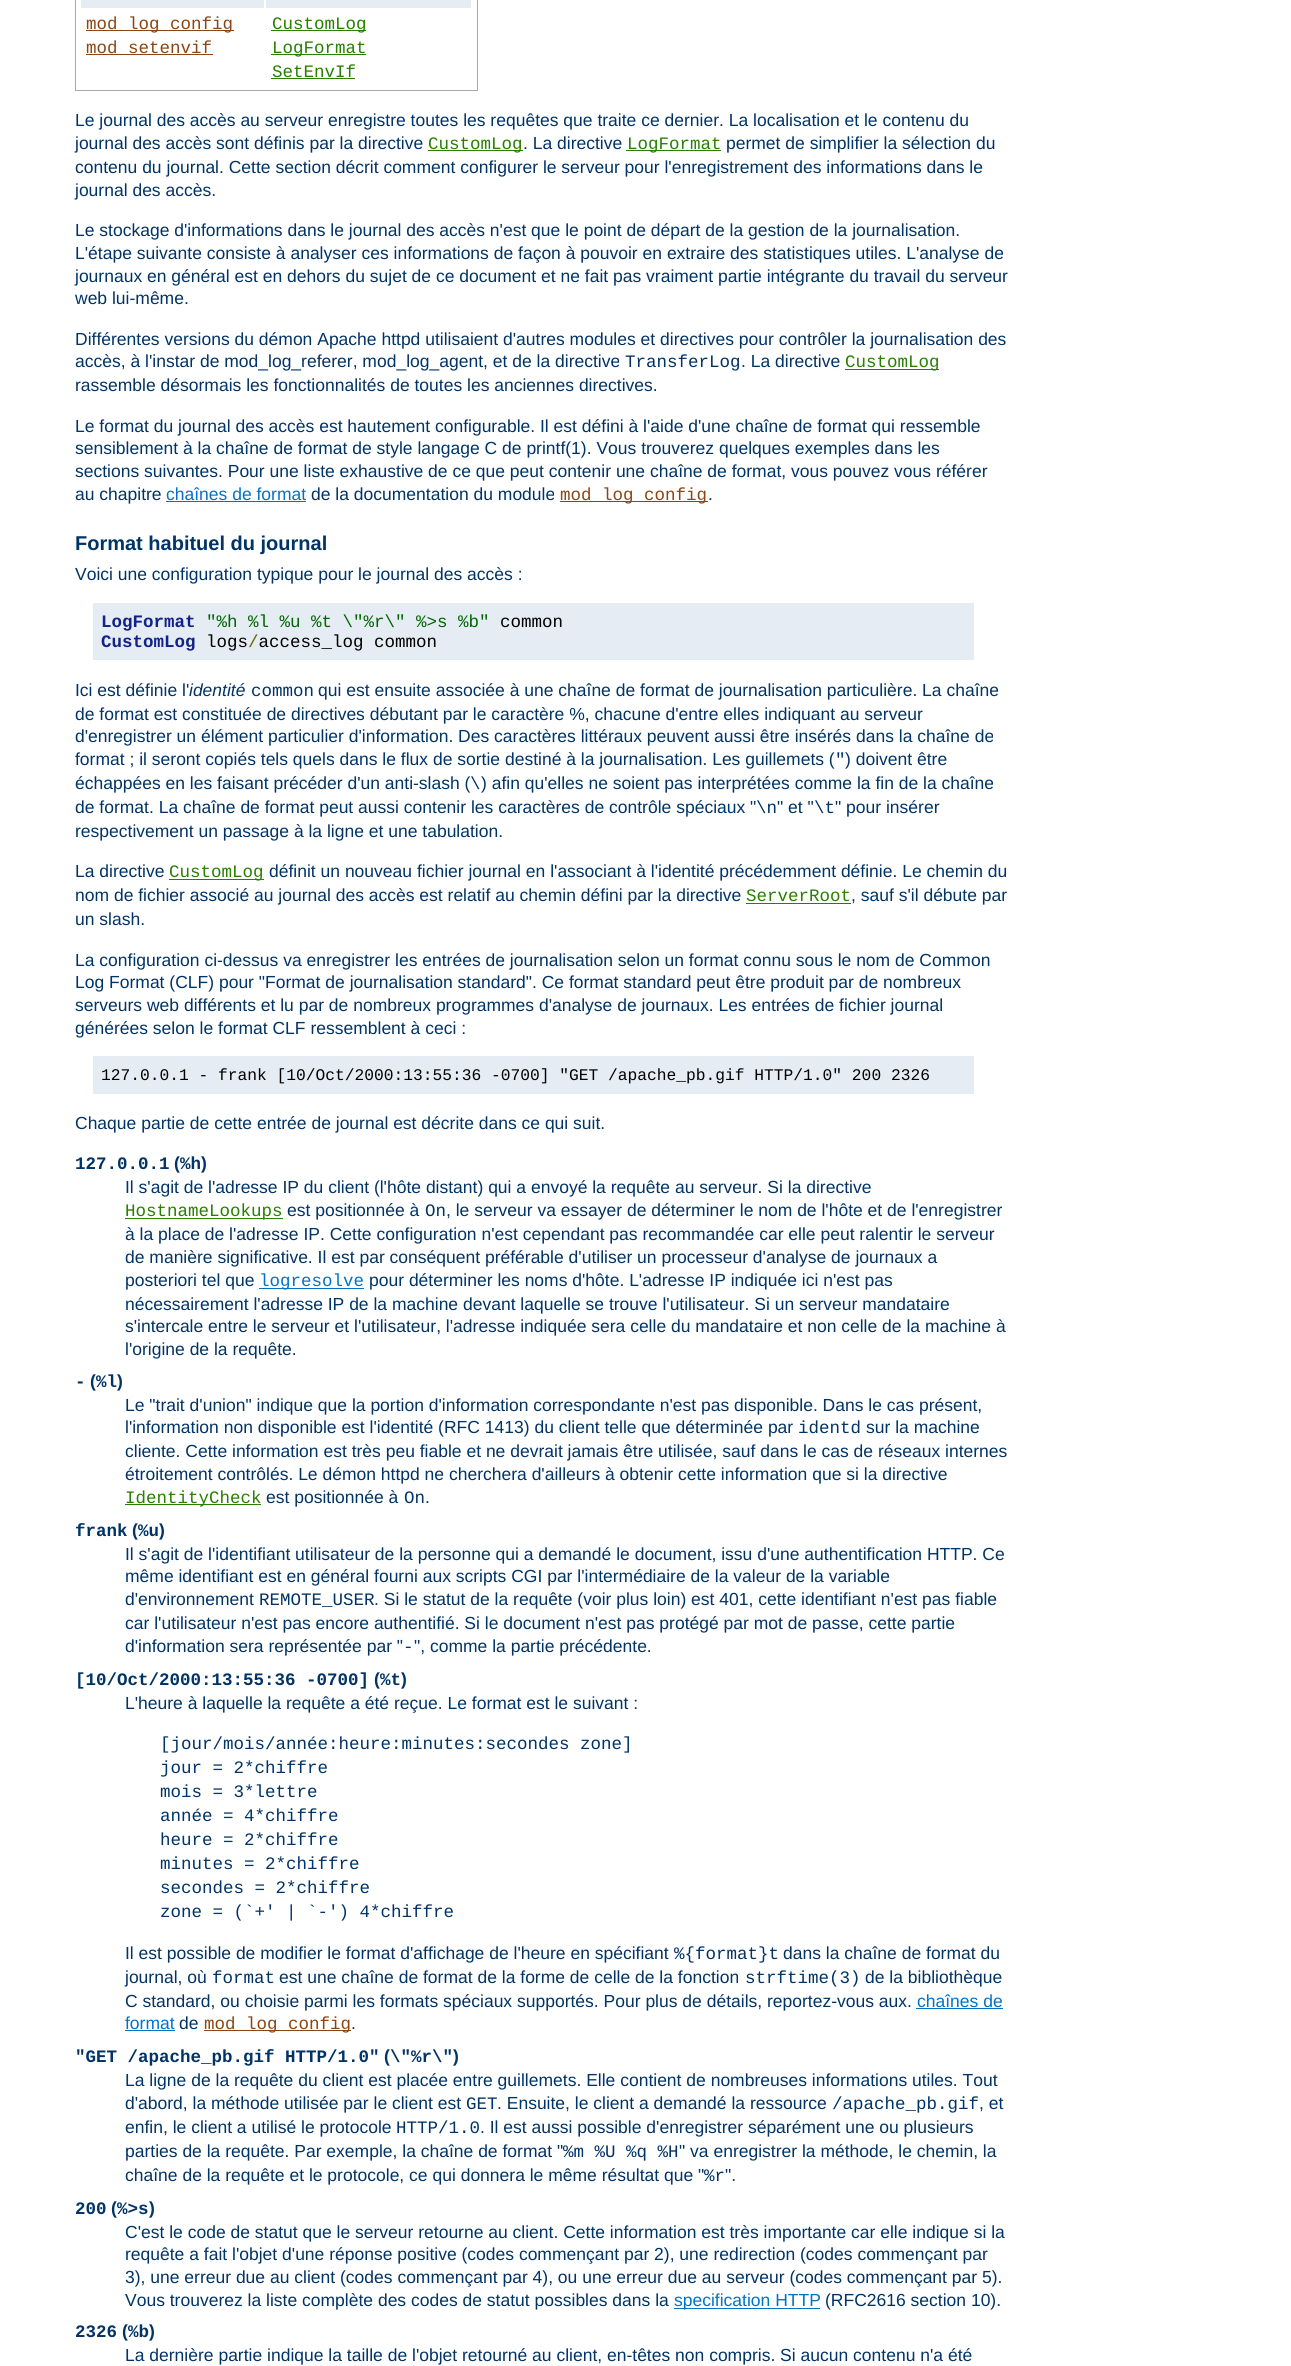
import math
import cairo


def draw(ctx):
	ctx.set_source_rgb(1, 1, 1)
	ctx.paint()
	ctx.rectangle(75.5, -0.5, 402, 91)
	ctx.set_source_rgb(0.667, 0.667, 0.667)
	ctx.set_line_width(1)
	ctx.stroke()
	ctx.set_source_rgb(0.898, 0.925, 0.953)
	ctx.rectangle(81, 0, 183, 8)
	ctx.rectangle(266, 0, 205, 8)
	ctx.fill()
	ctx.set_source_rgb(0.545, 0.271, 0.075)
	ctx.rectangle(86, 30, 148, 1)
	ctx.fill()
	ctx.select_font_face('Liberation Mono')
	ctx.set_font_size(17.5)
	ctx.move_to(86, 29)
	ctx.show_text('mod_log_config')
	ctx.rectangle(86, 54, 127, 1)
	ctx.fill()
	ctx.move_to(86, 53)
	ctx.show_text('mod_setenvif')
	ctx.set_source_rgb(0.157, 0.498, 0)
	ctx.rectangle(271, 30, 95, 1)
	ctx.fill()
	ctx.move_to(272, 29)
	ctx.show_text('CustomLog')
	ctx.rectangle(271, 54, 95, 1)
	ctx.fill()
	ctx.move_to(272, 53)
	ctx.show_text('LogFormat')
	ctx.move_to(272, 77)
	ctx.show_text('SetEnvIf')
	ctx.rectangle(271, 78, 84, 1)
	ctx.fill()
	ctx.select_font_face('Liberation Sans')
	ctx.set_source_rgb(0, 0.2, 0.4)
	ctx.move_to(75, 126)
	ctx.show_text('Le journal des accès au serveur enregistre toutes les requêtes que traite ce dernier. La localisation et le contenu du')
	ctx.move_to(75, 149)
	ctx.show_text('journal des accès sont définis par la directive')
	ctx.set_source_rgb(0.157, 0.498, 0)
	ctx.rectangle(428, 150, 95, 1)
	ctx.fill()
	ctx.select_font_face('Liberation Mono')
	ctx.move_to(428, 149)
	ctx.show_text('CustomLog')
	ctx.select_font_face('Liberation Sans')
	ctx.set_source_rgb(0, 0.2, 0.4)
	ctx.move_to(523, 149)
	ctx.show_text('. La directive')
	ctx.set_source_rgb(0.157, 0.498, 0)
	ctx.rectangle(626, 150, 95, 1)
	ctx.fill()
	ctx.select_font_face('Liberation Mono')
	ctx.move_to(627, 149)
	ctx.show_text('LogFormat')
	ctx.select_font_face('Liberation Sans')
	ctx.set_source_rgb(0, 0.2, 0.4)
	for x, y, s in [
		(726, 149, 'permet de simplifier la sélection du'),
		(75, 173, 'contenu du journal. Cette section décrit comment configurer le serveur pour l\'enregistrement des informations dans le'),
		(75, 196, 'journal des accès.'),
		(75, 236, 'Le stockage d\'informations dans le journal des accès n\'est que le point de départ de la gestion de la journalisation.'),
		(75, 259, 'L\'étape suivante consiste à analyser ces informations de façon à pouvoir en extraire des statistiques utiles. L\'analyse de'),
		(75, 282, 'journaux en général est en dehors du sujet de ce document et ne fait pas vraiment partie intégrante du travail du serveur'),
		(75, 304, 'web lui-même.'),
		(75, 345, 'Différentes versions du démon Apache httpd utilisaient d\'autres modules et directives pour contrôler la journalisation des'),
		(75, 367, 'accès, à l\'instar de mod_log_referer, mod_log_agent, et de la directive'),
	]:
		ctx.move_to(x, y)
		ctx.show_text(s)
	ctx.select_font_face('Liberation Mono')
	ctx.move_to(625, 367)
	ctx.show_text('TransferLog')
	ctx.select_font_face('Liberation Sans')
	ctx.move_to(741, 367)
	ctx.show_text('. La directive')
	ctx.set_source_rgb(0.157, 0.498, 0)
	ctx.rectangle(845, 369, 94, 1)
	ctx.fill()
	ctx.select_font_face('Liberation Mono')
	ctx.move_to(845, 367)
	ctx.show_text('CustomLog')
	ctx.select_font_face('Liberation Sans')
	ctx.set_source_rgb(0, 0.2, 0.4)
	for x, y, s in [
		(75, 391, 'rassemble désormais les fonctionnalités de toutes les anciennes directives.'),
		(75, 432, 'Le format du journal des accès est hautement configurable. Il est défini à l\'aide d\'une chaîne de format qui ressemble'),
		(75, 454, 'sensiblement à la chaîne de format de style langage C de printf(1). Vous trouverez quelques exemples dans les'),
		(75, 477, 'sections suivantes. Pour une liste exhaustive de ce que peut contenir une chaîne de format, vous pouvez vous référer'),
		(75, 500, 'au chapitre'),
	]:
		ctx.move_to(x, y)
		ctx.show_text(s)
	ctx.set_source_rgb(0, 0.451, 0.78)
	ctx.move_to(166, 500)
	ctx.show_text('chaînes de format')
	ctx.rectangle(166, 501, 140, 1)
	ctx.fill()
	ctx.set_source_rgb(0, 0.2, 0.4)
	ctx.move_to(311, 500)
	ctx.show_text('de la documentation du module')
	ctx.set_source_rgb(0.545, 0.271, 0.075)
	ctx.rectangle(560, 501, 148, 1)
	ctx.fill()
	ctx.select_font_face('Liberation Mono')
	ctx.move_to(560, 500)
	ctx.show_text('mod_log_config')
	ctx.select_font_face('Liberation Sans')
	ctx.set_source_rgb(0, 0.2, 0.4)
	ctx.move_to(708, 500)
	ctx.show_text('.')
	ctx.select_font_face('Liberation Sans', cairo.FONT_SLANT_NORMAL, cairo.FONT_WEIGHT_BOLD)
	ctx.set_font_size(20)
	ctx.move_to(75, 550)
	ctx.show_text('Format habituel du journal')
	ctx.select_font_face('Liberation Sans')
	ctx.set_font_size(17.5)
	ctx.move_to(75, 580)
	ctx.show_text('Voici une configuration typique pour le journal des accès :')
	ctx.set_source_rgb(0.898, 0.925, 0.953)
	ctx.rectangle(93, 603, 881, 57)
	ctx.fill()
	ctx.select_font_face('Liberation Mono', cairo.FONT_SLANT_NORMAL, cairo.FONT_WEIGHT_BOLD)
	ctx.set_source_rgb(0.067, 0.133, 0.533)
	ctx.move_to(101, 627)
	ctx.show_text('LogFormat')
	ctx.select_font_face('Liberation Mono')
	ctx.set_source_rgb(0, 0.4, 0)
	ctx.move_to(206, 627)
	ctx.show_text('"%h %l %u %t \\"%r\\" %>s %b"')
	ctx.set_source_rgb(0, 0, 0)
	ctx.move_to(500, 627)
	ctx.show_text('common')
	ctx.move_to(206, 647)
	ctx.show_text('logs access_log common')
	ctx.select_font_face('Liberation Mono', cairo.FONT_SLANT_NORMAL, cairo.FONT_WEIGHT_BOLD)
	ctx.set_source_rgb(0.067, 0.133, 0.533)
	ctx.move_to(101, 647)
	ctx.show_text('CustomLog')
	ctx.select_font_face('Liberation Mono')
	ctx.set_source_rgb(0.4, 0.4, 0)
	ctx.move_to(248, 647)
	ctx.show_text('/')
	ctx.select_font_face('Liberation Sans')
	ctx.set_source_rgb(0, 0.2, 0.4)
	ctx.move_to(75, 696)
	ctx.show_text('Ici est définie l\'')
	ctx.select_font_face('Liberation Sans', cairo.FONT_SLANT_ITALIC)
	ctx.move_to(189, 696)
	ctx.show_text('identité')
	ctx.select_font_face('Liberation Mono')
	ctx.move_to(251, 696)
	ctx.show_text('common')
	ctx.select_font_face('Liberation Sans')
	for x, y, s in [
		(318, 696, 'qui est ensuite associée à une chaîne de format de journalisation particulière. La chaîne'),
		(75, 720, 'de format est constituée de directives débutant par le caractère %, chacune d\'entre elles indiquant au serveur'),
		(75, 742, 'd\'enregistrer un élément particulier d\'information. Des caractères littéraux peuvent aussi être insérés dans la chaîne de'),
		(75, 765, 'format ; il seront copiés tels quels dans le flux de sortie destiné à la journalisation. Les guillemets ('),
	]:
		ctx.move_to(x, y)
		ctx.show_text(s)
	ctx.select_font_face('Liberation Mono')
	ctx.move_to(835, 765)
	ctx.show_text('"')
	ctx.select_font_face('Liberation Sans')
	ctx.move_to(845, 765)
	ctx.show_text(') doivent être')
	ctx.move_to(75, 789)
	ctx.show_text('échappées en les faisant précéder d\'un anti-slash (')
	ctx.select_font_face('Liberation Mono')
	ctx.move_to(470, 789)
	ctx.show_text('\\')
	ctx.select_font_face('Liberation Sans')
	ctx.move_to(481, 789)
	ctx.show_text(') afin qu\'elles ne soient pas interprétées comme la fin de la chaîne')
	ctx.move_to(75, 813)
	ctx.show_text('de format. La chaîne de format peut aussi contenir les caractères de contrôle spéciaux "')
	ctx.select_font_face('Liberation Mono')
	ctx.move_to(756, 813)
	ctx.show_text('\\n')
	ctx.select_font_face('Liberation Sans')
	ctx.move_to(777, 813)
	ctx.show_text('" et "')
	ctx.select_font_face('Liberation Mono')
	ctx.move_to(814, 813)
	ctx.show_text('\\t')
	ctx.select_font_face('Liberation Sans')
	for x, y, s in [
		(835, 813, '" pour insérer'),
		(75, 837, 'respectivement un passage à la ligne et une tabulation.'),
		(75, 877, 'La directive'),
	]:
		ctx.move_to(x, y)
		ctx.show_text(s)
	ctx.set_source_rgb(0.157, 0.498, 0)
	ctx.rectangle(169, 879, 95, 1)
	ctx.fill()
	ctx.select_font_face('Liberation Mono')
	ctx.move_to(169, 877)
	ctx.show_text('CustomLog')
	ctx.select_font_face('Liberation Sans')
	ctx.set_source_rgb(0, 0.2, 0.4)
	ctx.move_to(269, 877)
	ctx.show_text('définit un nouveau fichier journal en l\'associant à l\'identité précédemment définie. Le chemin du')
	ctx.move_to(75, 901)
	ctx.show_text('nom de fichier associé au journal des accès est relatif au chemin défini par la directive')
	ctx.select_font_face('Liberation Mono')
	ctx.set_source_rgb(0.157, 0.498, 0)
	ctx.move_to(746, 901)
	ctx.show_text('ServerRoot')
	ctx.rectangle(746, 903, 105, 1)
	ctx.fill()
	ctx.select_font_face('Liberation Sans')
	ctx.set_source_rgb(0, 0.2, 0.4)
	for x, y, s in [
		(851, 901, ', sauf s\'il débute par'),
		(75, 925, 'un slash.'),
		(75, 966, 'La configuration ci-dessus va enregistrer les entrées de journalisation selon un format connu sous le nom de Common'),
		(75, 988, 'Log Format (CLF) pour "Format de journalisation standard". Ce format standard peut être produit par de nombreux'),
		(75, 1011, 'serveurs web différents et lu par de nombreux programmes d\'analyse de journaux. Les entrées de fichier journal'),
		(75, 1034, 'générées selon le format CLF ressemblent à ceci :'),
	]:
		ctx.move_to(x, y)
		ctx.show_text(s)
	ctx.set_source_rgb(0.898, 0.925, 0.953)
	ctx.rectangle(93, 1056, 881, 38)
	ctx.fill()
	ctx.select_font_face('Liberation Mono')
	ctx.set_font_size(16.25)
	ctx.set_source_rgb(0, 0, 0)
	ctx.move_to(101, 1080)
	ctx.show_text('127.0.0.1 - frank [10/Oct/2000:13:55:36 -0700] "GET /apache_pb.gif HTTP/1.0" 200 2326')
	ctx.select_font_face('Liberation Sans')
	ctx.set_font_size(17.5)
	ctx.set_source_rgb(0, 0.2, 0.4)
	ctx.move_to(75, 1129)
	ctx.show_text('Chaque partie de cette entrée de journal est décrite dans ce qui suit.')
	ctx.select_font_face('Liberation Mono', cairo.FONT_SLANT_NORMAL, cairo.FONT_WEIGHT_BOLD)
	ctx.move_to(75, 1169)
	ctx.show_text('127.0.0.1')
	ctx.select_font_face('Liberation Sans', cairo.FONT_SLANT_NORMAL, cairo.FONT_WEIGHT_BOLD)
	ctx.move_to(174, 1169)
	ctx.show_text('(')
	ctx.select_font_face('Liberation Mono', cairo.FONT_SLANT_NORMAL, cairo.FONT_WEIGHT_BOLD)
	ctx.move_to(180, 1169)
	ctx.show_text('%h')
	ctx.select_font_face('Liberation Sans', cairo.FONT_SLANT_NORMAL, cairo.FONT_WEIGHT_BOLD)
	ctx.move_to(201, 1169)
	ctx.show_text(')')
	ctx.select_font_face('Liberation Sans')
	ctx.move_to(125, 1193)
	ctx.show_text('Il s\'agit de l\'adresse IP du client (l\'hôte distant) qui a envoyé la requête au serveur. Si la directive')
	ctx.set_source_rgb(0.157, 0.498, 0)
	ctx.rectangle(125, 1218, 158, 1)
	ctx.fill()
	ctx.select_font_face('Liberation Mono')
	ctx.move_to(125, 1216)
	ctx.show_text('HostnameLookups')
	ctx.select_font_face('Liberation Sans')
	ctx.set_source_rgb(0, 0.2, 0.4)
	ctx.move_to(287, 1216)
	ctx.show_text('est positionnée à')
	ctx.select_font_face('Liberation Mono')
	ctx.move_to(425, 1216)
	ctx.show_text('On')
	ctx.select_font_face('Liberation Sans')
	for x, y, s in [
		(446, 1216, ', le serveur va essayer de déterminer le nom de l\'hôte et de l\'enregistrer'),
		(125, 1240, 'à la place de l\'adresse IP. Cette configuration n\'est cependant pas recommandée car elle peut ralentir le serveur'),
		(125, 1263, 'de manière significative. Il est par conséquent préférable d\'utiliser un processeur d\'analyse de journaux a'),
		(125, 1286, 'posteriori tel que'),
	]:
		ctx.move_to(x, y)
		ctx.show_text(s)
	ctx.set_source_rgb(0, 0.451, 0.78)
	ctx.rectangle(259, 1288, 105, 1)
	ctx.fill()
	ctx.select_font_face('Liberation Mono')
	ctx.move_to(259, 1286)
	ctx.show_text('logresolve')
	ctx.select_font_face('Liberation Sans')
	ctx.set_source_rgb(0, 0.2, 0.4)
	for x, y, s in [
		(369, 1286, 'pour déterminer les noms d\'hôte. L\'adresse IP indiquée ici n\'est pas'),
		(125, 1310, 'nécessairement l\'adresse IP de la machine devant laquelle se trouve l\'utilisateur. Si un serveur mandataire'),
		(125, 1332, 's\'intercale entre le serveur et l\'utilisateur, l\'adresse indiquée sera celle du mandataire et non celle de la machine à'),
		(125, 1355, 'l\'origine de la requête.'),
	]:
		ctx.move_to(x, y)
		ctx.show_text(s)
	ctx.select_font_face('Liberation Mono', cairo.FONT_SLANT_NORMAL, cairo.FONT_WEIGHT_BOLD)
	ctx.move_to(75, 1387)
	ctx.show_text('-')
	ctx.select_font_face('Liberation Sans', cairo.FONT_SLANT_NORMAL, cairo.FONT_WEIGHT_BOLD)
	ctx.move_to(90, 1387)
	ctx.show_text('(')
	ctx.select_font_face('Liberation Mono', cairo.FONT_SLANT_NORMAL, cairo.FONT_WEIGHT_BOLD)
	ctx.move_to(96, 1387)
	ctx.show_text('%l')
	ctx.select_font_face('Liberation Sans', cairo.FONT_SLANT_NORMAL, cairo.FONT_WEIGHT_BOLD)
	ctx.move_to(117, 1387)
	ctx.show_text(')')
	ctx.select_font_face('Liberation Sans')
	ctx.move_to(125, 1411)
	ctx.show_text('Le "trait d\'union" indique que la portion d\'information correspondante n\'est pas disponible. Dans le cas présent,')
	ctx.move_to(125, 1433)
	ctx.show_text('l\'information non disponible est l\'identité (RFC 1413) du client telle que déterminée par')
	ctx.select_font_face('Liberation Mono')
	ctx.move_to(798, 1433)
	ctx.show_text('identd')
	ctx.select_font_face('Liberation Sans')
	for x, y, s in [
		(866, 1433, 'sur la machine'),
		(125, 1457, 'cliente. Cette information est très peu fiable et ne devrait jamais être utilisée, sauf dans le cas de réseaux internes'),
		(125, 1480, 'étroitement contrôlés. Le démon httpd ne cherchera d\'ailleurs à obtenir cette information que si la directive'),
	]:
		ctx.move_to(x, y)
		ctx.show_text(s)
	ctx.set_source_rgb(0.157, 0.498, 0)
	ctx.rectangle(125, 1504, 136, 1)
	ctx.fill()
	ctx.select_font_face('Liberation Mono')
	ctx.move_to(125, 1503)
	ctx.show_text('IdentityCheck')
	ctx.select_font_face('Liberation Sans')
	ctx.set_source_rgb(0, 0.2, 0.4)
	ctx.move_to(266, 1503)
	ctx.show_text('est positionnée à')
	ctx.select_font_face('Liberation Mono')
	ctx.move_to(404, 1503)
	ctx.show_text('On')
	ctx.select_font_face('Liberation Sans')
	ctx.move_to(425, 1503)
	ctx.show_text('.')
	ctx.select_font_face('Liberation Mono', cairo.FONT_SLANT_NORMAL, cairo.FONT_WEIGHT_BOLD)
	ctx.move_to(75, 1536)
	ctx.show_text('frank')
	ctx.select_font_face('Liberation Sans', cairo.FONT_SLANT_NORMAL, cairo.FONT_WEIGHT_BOLD)
	ctx.move_to(132, 1536)
	ctx.show_text('(')
	ctx.select_font_face('Liberation Mono', cairo.FONT_SLANT_NORMAL, cairo.FONT_WEIGHT_BOLD)
	ctx.move_to(138, 1536)
	ctx.show_text('%u')
	ctx.select_font_face('Liberation Sans', cairo.FONT_SLANT_NORMAL, cairo.FONT_WEIGHT_BOLD)
	ctx.move_to(159, 1536)
	ctx.show_text(')')
	ctx.select_font_face('Liberation Sans')
	for x, y, s in [
		(125, 1560, 'Il s\'agit de l\'identifiant utilisateur de la personne qui a demandé le document, issu d\'une authentification HTTP. Ce'),
		(125, 1582, 'même identifiant est en général fourni aux scripts CGI par l\'intermédiaire de la valeur de la variable'),
		(125, 1605, 'd\'environnement'),
	]:
		ctx.move_to(x, y)
		ctx.show_text(s)
	ctx.select_font_face('Liberation Mono')
	ctx.move_to(259, 1605)
	ctx.show_text('REMOTE_USER')
	ctx.select_font_face('Liberation Sans')
	for x, y, s in [
		(374, 1605, '. Si le statut de la requête (voir plus loin) est 401, cette identifiant n\'est pas fiable'),
		(125, 1629, 'car l\'utilisateur n\'est pas encore authentifié. Si le document n\'est pas protégé par mot de passe, cette partie'),
		(125, 1652, 'd\'information sera représentée par "'),
	]:
		ctx.move_to(x, y)
		ctx.show_text(s)
	ctx.select_font_face('Liberation Mono')
	ctx.move_to(403, 1652)
	ctx.show_text('-')
	ctx.select_font_face('Liberation Sans')
	ctx.move_to(414, 1652)
	ctx.show_text('", comme la partie précédente.')
	ctx.select_font_face('Liberation Mono', cairo.FONT_SLANT_NORMAL, cairo.FONT_WEIGHT_BOLD)
	ctx.move_to(75, 1685)
	ctx.show_text('[10/Oct/2000:13:55:36 -0700]')
	ctx.select_font_face('Liberation Sans', cairo.FONT_SLANT_NORMAL, cairo.FONT_WEIGHT_BOLD)
	ctx.move_to(374, 1685)
	ctx.show_text('(')
	ctx.select_font_face('Liberation Mono', cairo.FONT_SLANT_NORMAL, cairo.FONT_WEIGHT_BOLD)
	ctx.move_to(380, 1685)
	ctx.show_text('%t')
	ctx.select_font_face('Liberation Sans', cairo.FONT_SLANT_NORMAL, cairo.FONT_WEIGHT_BOLD)
	ctx.move_to(401, 1685)
	ctx.show_text(')')
	ctx.select_font_face('Liberation Sans')
	ctx.move_to(125, 1709)
	ctx.show_text('L\'heure à laquelle la requête a été reçue. Le format est le suivant :')
	ctx.select_font_face('Liberation Mono')
	for x, y, s in [
		(160, 1749, '[jour/mois/année:heure:minutes:secondes zone]'),
		(160, 1773, 'jour = 2*chiffre'),
		(160, 1797, 'mois = 3*lettre'),
		(160, 1821, 'année = 4*chiffre'),
		(160, 1845, 'heure = 2*chiffre'),
		(160, 1869, 'minutes = 2*chiffre'),
		(160, 1893, 'secondes = 2*chiffre'),
		(160, 1917, 'zone = (`+\' | `-\') 4*chiffre'),
	]:
		ctx.move_to(x, y)
		ctx.show_text(s)
	ctx.select_font_face('Liberation Sans')
	ctx.move_to(125, 1959)
	ctx.show_text('Il est possible de modifier le format d\'affichage de l\'heure en spécifiant')
	ctx.select_font_face('Liberation Mono')
	ctx.move_to(674, 1959)
	ctx.show_text('%{format}t')
	ctx.select_font_face('Liberation Sans')
	ctx.move_to(783, 1959)
	ctx.show_text('dans la chaîne de format du')
	ctx.move_to(125, 1983)
	ctx.show_text('journal, où')
	ctx.select_font_face('Liberation Mono')
	ctx.move_to(212, 1983)
	ctx.show_text('format')
	ctx.select_font_face('Liberation Sans')
	ctx.move_to(279, 1983)
	ctx.show_text('est une chaîne de format de la forme de celle de la fonction')
	ctx.select_font_face('Liberation Mono')
	ctx.move_to(745, 1983)
	ctx.show_text('strftime(3)')
	ctx.select_font_face('Liberation Sans')
	ctx.move_to(865, 1983)
	ctx.show_text('de la bibliothèque')
	ctx.move_to(125, 2007)
	ctx.show_text('C standard, ou choisie parmi les formats spéciaux supportés. Pour plus de détails, reportez-vous aux.')
	ctx.set_source_rgb(0, 0.451, 0.78)
	ctx.move_to(917, 2007)
	ctx.show_text('chaînes de')
	ctx.rectangle(916, 2008, 87, 1)
	ctx.fill()
	ctx.move_to(125, 2029)
	ctx.show_text('format')
	ctx.rectangle(125, 2030, 50, 1)
	ctx.fill()
	ctx.set_source_rgb(0, 0.2, 0.4)
	ctx.move_to(179, 2029)
	ctx.show_text('de')
	ctx.set_source_rgb(0.545, 0.271, 0.075)
	ctx.rectangle(204, 2030, 147, 1)
	ctx.fill()
	ctx.select_font_face('Liberation Mono')
	ctx.move_to(204, 2029)
	ctx.show_text('mod_log_config')
	ctx.select_font_face('Liberation Sans')
	ctx.set_source_rgb(0, 0.2, 0.4)
	ctx.move_to(351, 2029)
	ctx.show_text('.')
	ctx.select_font_face('Liberation Mono', cairo.FONT_SLANT_NORMAL, cairo.FONT_WEIGHT_BOLD)
	ctx.move_to(75, 2062)
	ctx.show_text('"GET /apache_pb.gif HTTP/1.0" \\"%r\\"')
	ctx.select_font_face('Liberation Sans', cairo.FONT_SLANT_NORMAL, cairo.FONT_WEIGHT_BOLD)
	ctx.move_to(384, 2062)
	ctx.show_text('(')
	ctx.move_to(453, 2062)
	ctx.show_text(')')
	ctx.select_font_face('Liberation Sans')
	ctx.move_to(125, 2086)
	ctx.show_text('La ligne de la requête du client est placée entre guillemets. Elle contient de nombreuses informations utiles. Tout')
	ctx.move_to(125, 2109)
	ctx.show_text('d\'abord, la méthode utilisée par le client est')
	ctx.select_font_face('Liberation Mono')
	ctx.move_to(466, 2109)
	ctx.show_text('GET')
	ctx.select_font_face('Liberation Sans')
	ctx.move_to(497, 2109)
	ctx.show_text('. Ensuite, le client a demandé la ressource')
	ctx.select_font_face('Liberation Mono')
	ctx.move_to(832, 2109)
	ctx.show_text('/apache_pb.gif')
	ctx.select_font_face('Liberation Sans')
	ctx.move_to(979, 2109)
	ctx.show_text(', et')
	ctx.move_to(125, 2133)
	ctx.show_text('enfin, le client a utilisé le protocole')
	ctx.select_font_face('Liberation Mono')
	ctx.move_to(396, 2133)
	ctx.show_text('HTTP/1.0')
	ctx.select_font_face('Liberation Sans')
	ctx.move_to(480, 2133)
	ctx.show_text('. Il est aussi possible d\'enregistrer séparément une ou plusieurs')
	ctx.move_to(125, 2157)
	ctx.show_text('parties de la requête. Par exemple, la chaîne de format "')
	ctx.select_font_face('Liberation Mono')
	ctx.move_to(563, 2157)
	ctx.show_text('%m %U %q %H')
	ctx.select_font_face('Liberation Sans')
	ctx.move_to(679, 2157)
	ctx.show_text('" va enregistrer la méthode, le chemin, la')
	ctx.move_to(125, 2181)
	ctx.show_text('chaîne de la requête et le protocole, ce qui donnera le même résultat que "')
	ctx.select_font_face('Liberation Mono')
	ctx.move_to(704, 2181)
	ctx.show_text('%r')
	ctx.select_font_face('Liberation Sans')
	ctx.move_to(725, 2181)
	ctx.show_text('".')
	ctx.select_font_face('Liberation Mono', cairo.FONT_SLANT_NORMAL, cairo.FONT_WEIGHT_BOLD)
	ctx.move_to(75, 2214)
	ctx.show_text('200')
	ctx.select_font_face('Liberation Sans', cairo.FONT_SLANT_NORMAL, cairo.FONT_WEIGHT_BOLD)
	ctx.move_to(111, 2214)
	ctx.show_text('(')
	ctx.select_font_face('Liberation Mono', cairo.FONT_SLANT_NORMAL, cairo.FONT_WEIGHT_BOLD)
	ctx.move_to(117, 2214)
	ctx.show_text('%>s')
	ctx.select_font_face('Liberation Sans', cairo.FONT_SLANT_NORMAL, cairo.FONT_WEIGHT_BOLD)
	ctx.move_to(149, 2214)
	ctx.show_text(')')
	ctx.select_font_face('Liberation Sans')
	for x, y, s in [
		(125, 2238, 'C\'est le code de statut que le serveur retourne au client. Cette information est très importante car elle indique si la'),
		(125, 2260, 'requête a fait l\'objet d\'une réponse positive (codes commençant par 2), une redirection (codes commençant par'),
		(125, 2283, '3), une erreur due au client (codes commençant par 4), ou une erreur due au serveur (codes commençant par 5).'),
		(125, 2306, 'Vous trouverez la liste complète des codes de statut possibles dans la'),
	]:
		ctx.move_to(x, y)
		ctx.show_text(s)
	ctx.set_source_rgb(0, 0.451, 0.78)
	ctx.rectangle(674, 2308, 146, 1)
	ctx.fill()
	ctx.move_to(674, 2306)
	ctx.show_text('specification HTTP')
	ctx.set_source_rgb(0, 0.2, 0.4)
	ctx.move_to(825, 2306)
	ctx.show_text('(RFC2616 section 10).')
	ctx.select_font_face('Liberation Mono', cairo.FONT_SLANT_NORMAL, cairo.FONT_WEIGHT_BOLD)
	ctx.move_to(75, 2337)
	ctx.show_text('2326')
	ctx.select_font_face('Liberation Sans', cairo.FONT_SLANT_NORMAL, cairo.FONT_WEIGHT_BOLD)
	ctx.move_to(122, 2337)
	ctx.show_text('(')
	ctx.select_font_face('Liberation Mono', cairo.FONT_SLANT_NORMAL, cairo.FONT_WEIGHT_BOLD)
	ctx.move_to(128, 2337)
	ctx.show_text('%b')
	ctx.select_font_face('Liberation Sans', cairo.FONT_SLANT_NORMAL, cairo.FONT_WEIGHT_BOLD)
	ctx.move_to(149, 2337)
	ctx.show_text(')')
	ctx.select_font_face('Liberation Sans')
	ctx.move_to(125, 2361)
	ctx.show_text('La dernière partie indique la taille de l\'objet retourné au client, en-têtes non compris. Si aucun contenu n\'a été')


surface = cairo.ImageSurface(cairo.FORMAT_RGB24, 1291, 2366)
ctx = cairo.Context(surface)
options = cairo.FontOptions()
options.set_hint_metrics(cairo.HINT_METRICS_OFF)
options.set_hint_style(cairo.HINT_STYLE_NONE)
ctx.set_font_options(options)
ctx.set_miter_limit(4)
draw(ctx)
surface.write_to_png('image.png')
